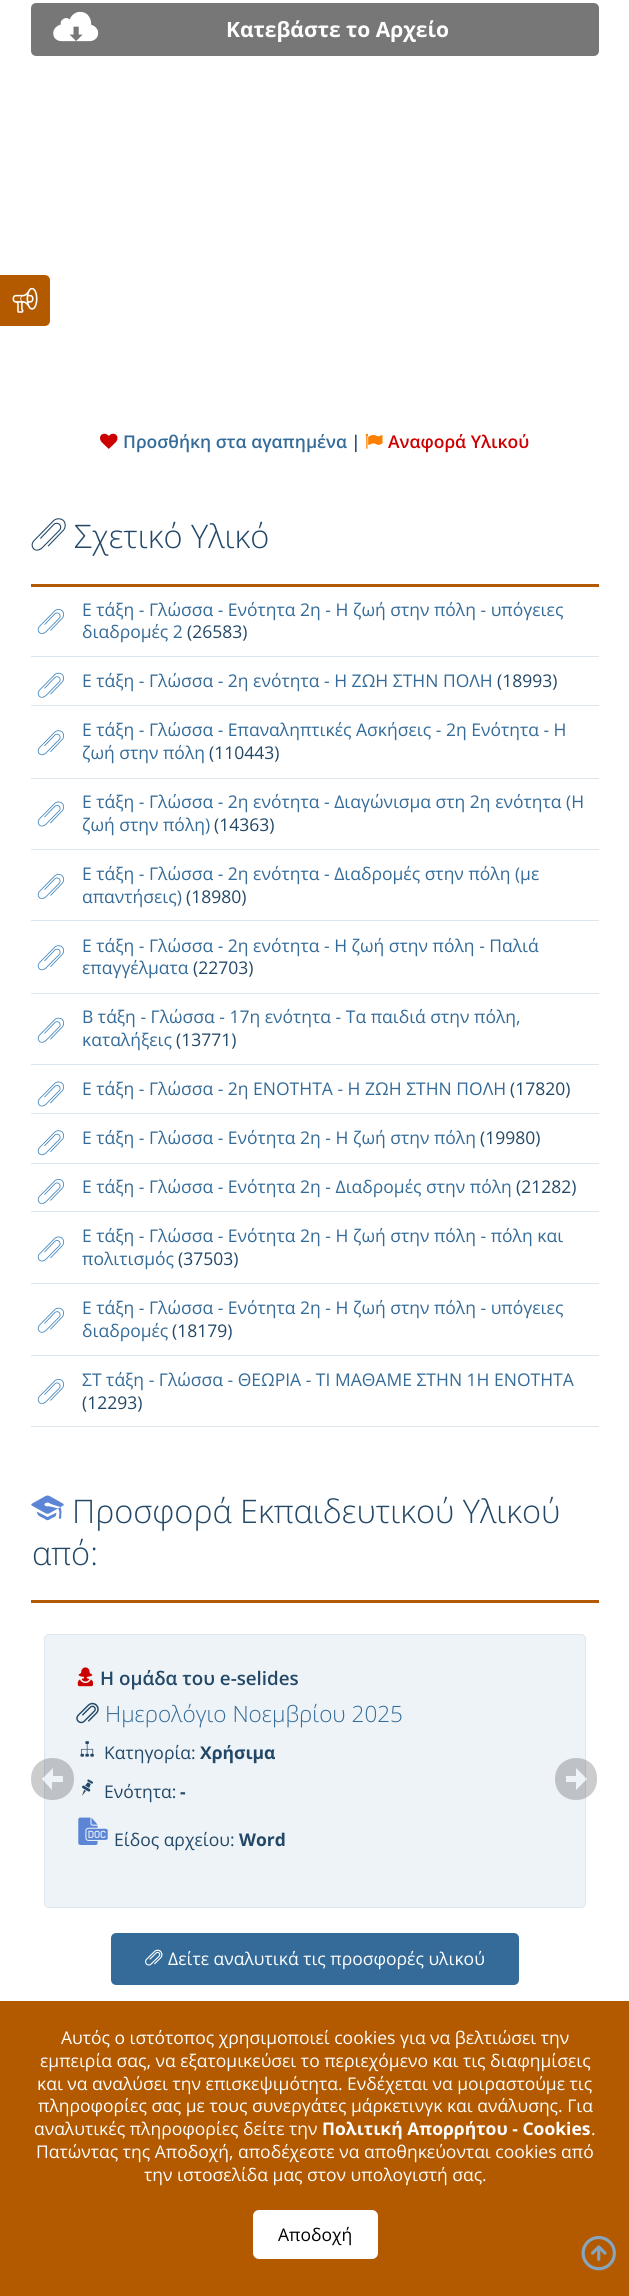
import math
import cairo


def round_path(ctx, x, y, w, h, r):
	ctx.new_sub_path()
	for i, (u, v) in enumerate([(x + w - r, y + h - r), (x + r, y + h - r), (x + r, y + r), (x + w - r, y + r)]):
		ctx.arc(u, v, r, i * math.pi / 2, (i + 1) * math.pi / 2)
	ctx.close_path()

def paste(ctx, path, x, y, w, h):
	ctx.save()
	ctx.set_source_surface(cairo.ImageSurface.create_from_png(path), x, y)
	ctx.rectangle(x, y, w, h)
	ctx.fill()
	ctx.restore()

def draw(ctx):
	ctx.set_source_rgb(1, 1, 1)
	ctx.paint()
	ctx.set_source_rgb(0.702, 0.349, 0)
	round_path(ctx, -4.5, 276.5, 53, 48, 3.5)
	ctx.fill_preserve()
	ctx.set_line_width(3)
	ctx.stroke()
	paste(ctx, 'media/1.png', 12, 287, 26, 26)
	ctx.set_source_rgb(0.467, 0.467, 0.467)
	round_path(ctx, 32.5, 4.5, 565, 50, 3.5)
	ctx.fill_preserve()
	ctx.stroke()
	paste(ctx, 'media/2.png', 53, 11, 46, 31)
	ctx.select_font_face('Open Sans', cairo.FONT_SLANT_NORMAL, cairo.FONT_WEIGHT_BOLD)
	ctx.set_font_size(21)
	ctx.set_source_rgb(1, 1, 1)
	ctx.move_to(226, 37)
	ctx.show_text('Κατεβάστε το Αρχείο')
	paste(ctx, 'media/3.png', 100, 433, 18, 16)
	ctx.select_font_face('Open Sans SemiBold')
	ctx.set_font_size(17.5)
	ctx.set_source_rgb(0.204, 0.42, 0.596)
	ctx.move_to(123, 448)
	ctx.show_text('Προσθήκη στα αγαπημένα')
	ctx.set_source_rgb(0.137, 0.282, 0.404)
	ctx.move_to(351, 448)
	ctx.show_text('|')
	paste(ctx, 'media/4.png', 365, 433, 18, 16)
	ctx.set_source_rgb(0.8, 0, 0)
	ctx.move_to(388, 448)
	ctx.show_text('Αναφορά Υλικού')
	ctx.set_source_rgb(0.702, 0.349, 0)
	ctx.rectangle(31, 584, 568, 3)
	ctx.fill()
	paste(ctx, 'media/5.png', 31, 518, 35, 33)
	ctx.select_font_face('Open Sans Light')
	ctx.set_font_size(32.5)
	ctx.set_source_rgb(0.137, 0.282, 0.404)
	ctx.move_to(74, 548)
	ctx.show_text('Σχετικό Υλικό')
	ctx.set_source_rgb(0.863, 0.902, 0.925)
	ctx.rectangle(31, 656, 568, 1)
	ctx.fill()
	paste(ctx, 'media/6.png', 37, 609, 27, 25)
	ctx.select_font_face('Open Sans')
	ctx.set_font_size(17.5)
	ctx.set_source_rgb(0.204, 0.42, 0.596)
	ctx.move_to(82, 616)
	ctx.show_text('Ε τάξη - Γλώσσα - Ενότητα 2η - Η ζωή στην πόλη - υπόγειες')
	ctx.move_to(82, 638)
	ctx.show_text('διαδρομές 2')
	ctx.set_source_rgb(0.137, 0.282, 0.404)
	ctx.move_to(187, 638)
	ctx.show_text('(26583)')
	ctx.set_source_rgb(0.863, 0.902, 0.925)
	ctx.rectangle(31, 705, 568, 1)
	ctx.fill()
	paste(ctx, 'media/7.png', 37, 672, 27, 26)
	ctx.set_source_rgb(0.204, 0.42, 0.596)
	ctx.move_to(82, 687)
	ctx.show_text('Ε τάξη - Γλώσσα - 2η ενότητα - Η ΖΩΗ ΣΤΗΝ ΠΟΛΗ')
	ctx.set_source_rgb(0.137, 0.282, 0.404)
	ctx.move_to(497, 687)
	ctx.show_text('(18993)')
	ctx.set_source_rgb(0.863, 0.902, 0.925)
	ctx.rectangle(31, 778, 568, 1)
	ctx.fill()
	paste(ctx, 'media/8.png', 37, 730, 27, 26)
	ctx.set_source_rgb(0.204, 0.42, 0.596)
	ctx.move_to(82, 736)
	ctx.show_text('Ε τάξη - Γλώσσα - Επαναληπτικές Ασκήσεις - 2η Ενότητα - Η')
	ctx.move_to(82, 759)
	ctx.show_text('ζωή στην πόλη')
	ctx.set_source_rgb(0.137, 0.282, 0.404)
	ctx.move_to(209, 759)
	ctx.show_text('(110443)')
	ctx.set_source_rgb(0.863, 0.902, 0.925)
	ctx.rectangle(31, 849, 568, 1)
	ctx.fill()
	paste(ctx, 'media/9.png', 37, 801, 27, 26)
	ctx.set_source_rgb(0.204, 0.42, 0.596)
	ctx.move_to(82, 808)
	ctx.show_text('Ε τάξη - Γλώσσα - 2η ενότητα - Διαγώνισμα στη 2η ενότητα (Η')
	ctx.move_to(82, 831)
	ctx.show_text('ζωή στην πόλη)')
	ctx.set_source_rgb(0.137, 0.282, 0.404)
	ctx.move_to(214, 831)
	ctx.show_text('(14363)')
	ctx.set_source_rgb(0.863, 0.902, 0.925)
	ctx.rectangle(31, 920, 568, 1)
	ctx.fill()
	paste(ctx, 'media/6.png', 37, 874, 27, 25)
	ctx.set_source_rgb(0.204, 0.42, 0.596)
	ctx.move_to(82, 880)
	ctx.show_text('Ε τάξη - Γλώσσα - 2η ενότητα - Διαδρομές στην πόλη (με')
	ctx.move_to(82, 903)
	ctx.show_text('απαντήσεις)')
	ctx.set_source_rgb(0.137, 0.282, 0.404)
	ctx.move_to(186, 903)
	ctx.show_text('(18980)')
	ctx.set_source_rgb(0.863, 0.902, 0.925)
	ctx.rectangle(31, 993, 568, 1)
	ctx.fill()
	paste(ctx, 'media/8.png', 37, 945, 27, 26)
	ctx.set_source_rgb(0.204, 0.42, 0.596)
	ctx.move_to(82, 952)
	ctx.show_text('Ε τάξη - Γλώσσα - 2η ενότητα - Η ζωή στην πόλη - Παλιά')
	ctx.move_to(82, 974)
	ctx.show_text('επαγγέλματα')
	ctx.set_source_rgb(0.137, 0.282, 0.404)
	ctx.move_to(193, 974)
	ctx.show_text('(22703)')
	ctx.set_source_rgb(0.863, 0.902, 0.925)
	ctx.rectangle(31, 1064, 568, 1)
	ctx.fill()
	paste(ctx, 'media/7.png', 37, 1017, 27, 26)
	ctx.set_source_rgb(0.204, 0.42, 0.596)
	ctx.move_to(82, 1023)
	ctx.show_text('Β τάξη - Γλώσσα - 17η ενότητα - Τα παιδιά στην πόλη,')
	ctx.move_to(82, 1046)
	ctx.show_text('καταλήξεις')
	ctx.set_source_rgb(0.137, 0.282, 0.404)
	ctx.move_to(176, 1046)
	ctx.show_text('(13771)')
	ctx.set_source_rgb(0.863, 0.902, 0.925)
	ctx.rectangle(31, 1113, 568, 1)
	ctx.fill()
	paste(ctx, 'media/9.png', 37, 1081, 27, 26)
	ctx.set_source_rgb(0.204, 0.42, 0.596)
	ctx.move_to(82, 1095)
	ctx.show_text('Ε τάξη - Γλώσσα - 2η ΕΝΟΤΗΤΑ - Η ΖΩΗ ΣΤΗΝ ΠΟΛΗ')
	ctx.set_source_rgb(0.137, 0.282, 0.404)
	ctx.move_to(510, 1095)
	ctx.show_text('(17820)')
	ctx.set_source_rgb(0.863, 0.902, 0.925)
	ctx.rectangle(31, 1163, 568, 1)
	ctx.fill()
	paste(ctx, 'media/8.png', 37, 1130, 27, 26)
	ctx.set_source_rgb(0.204, 0.42, 0.596)
	ctx.move_to(82, 1144)
	ctx.show_text('Ε τάξη - Γλώσσα - Ενότητα 2η - Η ζωή στην πόλη')
	ctx.set_source_rgb(0.137, 0.282, 0.404)
	ctx.move_to(480, 1144)
	ctx.show_text('(19980)')
	ctx.set_source_rgb(0.863, 0.902, 0.925)
	ctx.rectangle(31, 1211, 568, 1)
	ctx.fill()
	paste(ctx, 'media/6.png', 37, 1179, 27, 25)
	ctx.set_source_rgb(0.204, 0.42, 0.596)
	ctx.move_to(82, 1193)
	ctx.show_text('Ε τάξη - Γλώσσα - Ενότητα 2η - Διαδρομές στην πόλη')
	ctx.set_source_rgb(0.137, 0.282, 0.404)
	ctx.move_to(516, 1193)
	ctx.show_text('(21282)')
	ctx.set_source_rgb(0.863, 0.902, 0.925)
	ctx.rectangle(31, 1283, 568, 1)
	ctx.fill()
	paste(ctx, 'media/9.png', 37, 1236, 27, 26)
	ctx.set_source_rgb(0.204, 0.42, 0.596)
	ctx.move_to(82, 1242)
	ctx.show_text('Ε τάξη - Γλώσσα - Ενότητα 2η - Η ζωή στην πόλη - πόλη και')
	ctx.move_to(82, 1265)
	ctx.show_text('πολιτισμός')
	ctx.set_source_rgb(0.137, 0.282, 0.404)
	ctx.move_to(178, 1265)
	ctx.show_text('(37503)')
	ctx.set_source_rgb(0.863, 0.902, 0.925)
	ctx.rectangle(31, 1355, 568, 1)
	ctx.fill()
	paste(ctx, 'media/7.png', 37, 1307, 27, 26)
	ctx.set_source_rgb(0.204, 0.42, 0.596)
	ctx.move_to(82, 1314)
	ctx.show_text('Ε τάξη - Γλώσσα - Ενότητα 2η - Η ζωή στην πόλη - υπόγειες')
	ctx.move_to(82, 1337)
	ctx.show_text('διαδρομές')
	ctx.set_source_rgb(0.137, 0.282, 0.404)
	ctx.move_to(172, 1337)
	ctx.show_text('(18179)')
	ctx.set_source_rgb(0.863, 0.902, 0.925)
	ctx.rectangle(31, 1426, 568, 1)
	ctx.fill()
	paste(ctx, 'media/6.png', 37, 1379, 27, 25)
	ctx.set_source_rgb(0.204, 0.42, 0.596)
	ctx.move_to(82, 1386)
	ctx.show_text('ΣΤ τάξη - Γλώσσα - ΘΕΩΡΙΑ - ΤΙ ΜΑΘΑΜΕ ΣΤΗΝ 1Η ΕΝΟΤΗΤΑ')
	ctx.set_source_rgb(0.137, 0.282, 0.404)
	ctx.move_to(82, 1409)
	ctx.show_text('(12293)')
	ctx.set_source_rgb(0.702, 0.349, 0)
	ctx.rectangle(31, 1600, 568, 3)
	ctx.fill()
	paste(ctx, 'media/10.png', 31, 1495, 33, 26)
	ctx.select_font_face('Open Sans Light')
	ctx.set_font_size(32.5)
	ctx.set_source_rgb(0.137, 0.282, 0.404)
	ctx.move_to(72, 1523)
	ctx.show_text('Προσφορά Εκπαιδευτικού Υλικού')
	ctx.move_to(32, 1565)
	ctx.show_text('από:')
	ctx.set_source_rgb(0.933, 0.953, 0.965)
	round_path(ctx, 44.5, 1634.5, 541, 273, 4.5)
	ctx.fill_preserve()
	ctx.set_source_rgb(0.863, 0.902, 0.925)
	ctx.set_line_width(1)
	ctx.stroke()
	ctx.set_source_rgba(0, 0, 0, 0.2)
	ctx.new_path()
	ctx.move_to(74, 1779)
	ctx.curve_to(74, 1751, 31, 1751, 31, 1779)
	ctx.curve_to(31, 1807, 74, 1807, 74, 1779)
	ctx.close_path()
	ctx.move_to(42, 1779)
	ctx.line_to(53, 1768)
	ctx.line_to(53, 1776)
	ctx.line_to(63, 1776)
	ctx.line_to(63, 1782)
	ctx.line_to(52, 1782)
	ctx.line_to(52, 1790)
	ctx.close_path()
	ctx.fill()
	paste(ctx, 'media/11.png', 77, 1667, 17, 20)
	ctx.select_font_face('Open Sans SemiBold')
	ctx.set_font_size(18.75)
	ctx.set_source_rgb(0.137, 0.282, 0.404)
	ctx.move_to(100, 1685)
	ctx.show_text('Η ομάδα του e-selides')
	paste(ctx, 'media/12.png', 76, 1702, 23, 22)
	ctx.select_font_face('Open Sans Light')
	ctx.set_font_size(22.5)
	ctx.set_source_rgb(0.204, 0.42, 0.596)
	ctx.move_to(105, 1722)
	ctx.show_text('Ημερολόγιο Νοεμβρίου 2025')
	paste(ctx, 'media/13.png', 80, 1741, 14, 16)
	ctx.select_font_face('Open Sans')
	ctx.set_font_size(17.5)
	ctx.set_source_rgb(0.137, 0.282, 0.404)
	ctx.move_to(104, 1759)
	ctx.show_text('Κατηγορία:')
	ctx.select_font_face('Open Sans', cairo.FONT_SLANT_NORMAL, cairo.FONT_WEIGHT_BOLD)
	ctx.move_to(200, 1759)
	ctx.show_text('Χρήσιμα')
	paste(ctx, 'media/14.png', 82, 1779, 12, 17)
	ctx.select_font_face('Open Sans')
	ctx.move_to(104, 1798)
	ctx.show_text('Ενότητα:')
	ctx.select_font_face('Open Sans', cairo.FONT_SLANT_NORMAL, cairo.FONT_WEIGHT_BOLD)
	ctx.move_to(180, 1798)
	ctx.show_text('-')
	paste(ctx, 'media/15.png', 78, 1817, 30, 28)
	ctx.select_font_face('Open Sans')
	ctx.move_to(114, 1846)
	ctx.show_text('Είδος αρχείου:')
	ctx.select_font_face('Open Sans', cairo.FONT_SLANT_NORMAL, cairo.FONT_WEIGHT_BOLD)
	ctx.move_to(239, 1846)
	ctx.show_text('Word')
	ctx.set_source_rgba(0, 0, 0, 0.2)
	ctx.new_path()
	ctx.move_to(555, 1779)
	ctx.curve_to(555, 1807, 597, 1807, 597, 1779)
	ctx.curve_to(598, 1751, 555, 1751, 555, 1779)
	ctx.close_path()
	ctx.move_to(587, 1779)
	ctx.line_to(576, 1790)
	ctx.line_to(576, 1782)
	ctx.line_to(566, 1782)
	ctx.line_to(566, 1776)
	ctx.line_to(576, 1776)
	ctx.line_to(576, 1768)
	ctx.close_path()
	ctx.fill()
	ctx.set_source_rgb(0.204, 0.42, 0.596)
	round_path(ctx, 112.5, 1934.5, 405, 49, 3.5)
	ctx.fill_preserve()
	ctx.set_line_width(3)
	ctx.stroke()
	paste(ctx, 'media/16.png', 145, 1949, 18, 17)
	ctx.select_font_face('Open Sans')
	ctx.set_source_rgb(1, 1, 1)
	ctx.move_to(168, 1965)
	ctx.show_text('Δείτε αναλυτικά τις προσφορές υλικού')
	ctx.set_source_rgb(0.702, 0.349, 0)
	ctx.rectangle(0, 2001, 629, 295)
	ctx.fill()
	ctx.set_source_rgb(1, 1, 1)
	for x, y, s in [
		(61, 2044, 'Αυτός ο ιστότοπος χρησιμοποιεί cookies για να βελτιώσει την'),
		(40, 2067, 'εμπειρία σας, να εξατομικεύσει το περιεχόμενο και τις διαφημίσεις'),
		(37, 2090, 'και να αναλύσει την επισκεψιμότητα. Ενδέχεται να μοιραστούμε τις'),
		(38, 2112, 'πληροφορίες σας με τους συνεργάτες μάρκετινγκ και ανάλυσης. Για'),
		(34, 2135, 'αναλυτικές πληροφορίες δείτε την'),
	]:
		ctx.move_to(x, y)
		ctx.show_text(s)
	ctx.select_font_face('Open Sans', cairo.FONT_SLANT_NORMAL, cairo.FONT_WEIGHT_BOLD)
	ctx.move_to(322, 2135)
	ctx.show_text('Πολιτική Απορρήτου - Cookies')
	ctx.select_font_face('Open Sans')
	for x, y, s in [
		(591, 2135, '.'),
		(36, 2158, 'Πατώντας της Αποδοχή, αποδέχεστε να αποθηκεύονται cookies από'),
		(144, 2181, 'την ιστοσελίδα μας στον υπολογιστή σας.'),
	]:
		ctx.move_to(x, y)
		ctx.show_text(s)
	round_path(ctx, 253, 2210, 125, 49, 6)
	ctx.fill()
	ctx.set_source_rgb(0, 0, 0)
	ctx.move_to(278, 2241)
	ctx.show_text('Αποδοχή')
	paste(ctx, 'media/17.png', 581, 2235, 35, 36)


surface = cairo.ImageSurface(cairo.FORMAT_RGB24, 629, 2296)
ctx = cairo.Context(surface)
options = cairo.FontOptions()
options.set_hint_metrics(cairo.HINT_METRICS_OFF)
options.set_hint_style(cairo.HINT_STYLE_NONE)
ctx.set_font_options(options)
ctx.set_miter_limit(4)
draw(ctx)
surface.write_to_png('image.png')
